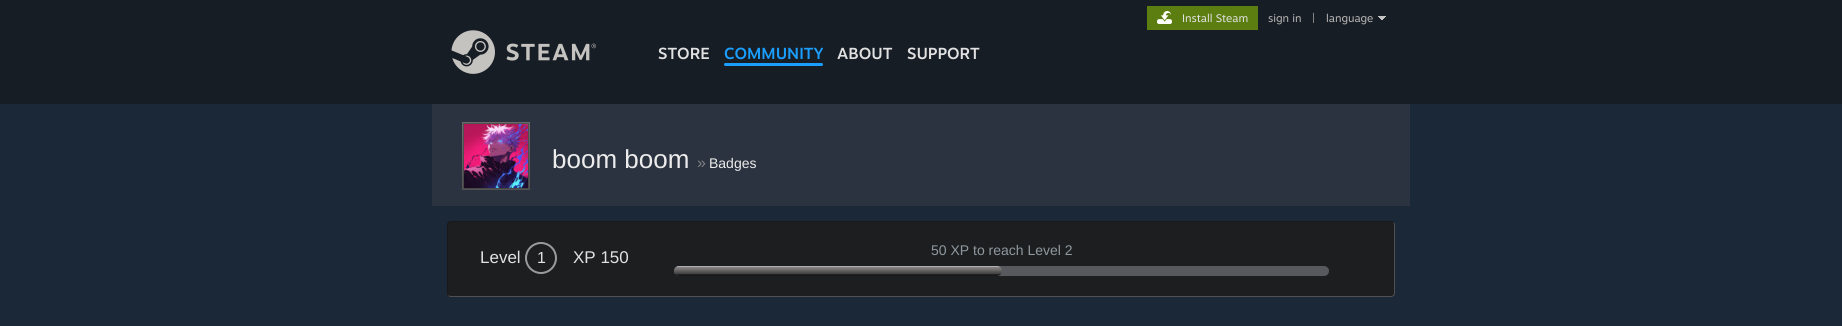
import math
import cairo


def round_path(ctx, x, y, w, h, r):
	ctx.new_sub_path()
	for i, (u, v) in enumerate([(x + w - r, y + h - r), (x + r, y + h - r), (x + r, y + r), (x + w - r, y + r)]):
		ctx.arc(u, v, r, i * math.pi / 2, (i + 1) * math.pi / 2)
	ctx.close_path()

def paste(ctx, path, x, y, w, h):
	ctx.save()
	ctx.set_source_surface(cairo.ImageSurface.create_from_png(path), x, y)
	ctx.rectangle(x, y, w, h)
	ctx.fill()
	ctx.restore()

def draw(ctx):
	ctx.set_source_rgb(0.106, 0.157, 0.22)
	ctx.paint()
	ctx.set_source_rgb(0.09, 0.114, 0.145)
	ctx.rectangle(0, 0, 1842, 104)
	ctx.fill()
	ctx.set_source_rgb(0.361, 0.494, 0.063)
	ctx.rectangle(1147, 6, 111, 24)
	ctx.fill()
	paste(ctx, 'media/1.png', 1157, 11, 15, 13)
	ctx.select_font_face('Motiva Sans')
	ctx.set_font_size(11)
	ctx.set_source_rgb(0.882, 0.882, 0.882)
	ctx.move_to(1182, 22)
	ctx.show_text('Install Steam')
	ctx.set_source_rgb(0.722, 0.714, 0.706)
	for x, y, s in [
		(1268, 22, 'sign in'),
		(1312, 22, '|'),
		(1326, 22, 'language'),
	]:
		ctx.move_to(x, y)
		ctx.show_text(s)
	paste(ctx, 'media/2.png', 1378, 16, 8, 4)
	paste(ctx, 'media/3.png', 451, 30, 145, 44)
	ctx.select_font_face('Motiva Sans Medium')
	ctx.set_font_size(16)
	ctx.set_source_rgb(0.882, 0.882, 0.882)
	ctx.move_to(658, 59)
	ctx.show_text('STORE')
	ctx.set_source_rgb(0.102, 0.624, 1)
	ctx.move_to(724, 59)
	ctx.show_text('COMMUNITY')
	round_path(ctx, 724, 63, 99, 3, 1.5)
	ctx.fill()
	ctx.set_source_rgb(0.882, 0.882, 0.882)
	ctx.move_to(837, 59)
	ctx.show_text('ABOUT')
	ctx.move_to(907, 59)
	ctx.show_text('SUPPORT')
	ctx.set_source_rgb(0.169, 0.2, 0.251)
	ctx.rectangle(432, 104, 978, 102)
	ctx.fill()
	gradient = cairo.LinearGradient(496, 122, 496, 190)
	gradient.add_color_stop_rgba(0.05, 0.416, 0.416, 0.416, 1)
	gradient.add_color_stop_rgba(0.95, 0.333, 0.333, 0.333, 1)
	ctx.set_source(gradient)
	ctx.rectangle(462, 122, 68, 68)
	ctx.fill()
	gradient = cairo.LinearGradient(496, 123, 496, 189)
	gradient.add_color_stop_rgba(0.05, 0.318, 0.318, 0.318, 1)
	gradient.add_color_stop_rgba(0.95, 0.278, 0.278, 0.278, 1)
	ctx.set_source(gradient)
	ctx.rectangle(463, 123, 66, 66)
	ctx.fill()
	paste(ctx, 'media/4.png', 464, 124, 64, 64)
	ctx.select_font_face('Liberation Sans')
	ctx.set_font_size(26)
	ctx.set_source_rgb(0.922, 0.922, 0.922)
	ctx.move_to(552, 168)
	ctx.show_text('boom boom')
	ctx.set_font_size(16)
	ctx.set_source_rgb(0.51, 0.51, 0.51)
	ctx.move_to(697, 168)
	ctx.show_text('»')
	ctx.set_font_size(14)
	ctx.set_source_rgb(0.922, 0.922, 0.922)
	ctx.move_to(709, 168)
	ctx.show_text('Badges')
	ctx.set_source_rgb(0.114, 0.118, 0.125)
	round_path(ctx, 447, 221, 948, 76, 4)
	ctx.fill()
	ctx.new_path()
	ctx.move_to(1393.5, 222.5)
	ctx.curve_to(1394, 223, 1394.5, 224, 1394.5, 225)
	ctx.line_to(1394.5, 293)
	ctx.curve_to(1394.5, 294, 1394, 295, 1393.5, 295.5)
	ctx.curve_to(1393, 296, 1392, 296.5, 1391, 296.5)
	ctx.line_to(451, 296.5)
	ctx.curve_to(450, 296.5, 449, 296, 448.5, 295.5)
	ctx.set_source_rgb(0.318, 0.318, 0.325)
	ctx.set_line_width(1)
	ctx.stroke()
	ctx.new_path()
	ctx.move_to(448.5, 295.5)
	ctx.curve_to(448, 295, 447.5, 294, 447.5, 293)
	ctx.line_to(447.5, 225)
	ctx.curve_to(447.5, 224, 448, 223, 448.5, 222.5)
	ctx.curve_to(449, 222, 450, 221.5, 451, 221.5)
	ctx.line_to(1391, 221.5)
	ctx.curve_to(1392, 221.5, 1393, 222, 1393.5, 222.5)
	ctx.set_source_rgb(0.102, 0.094, 0.098)
	ctx.stroke()
	ctx.set_font_size(17)
	ctx.set_source_rgb(0.882, 0.882, 0.882)
	ctx.move_to(480, 263)
	ctx.show_text('Level')
	ctx.new_path()
	ctx.arc(541, 258, 15, 0, 2 * math.pi)
	ctx.set_source_rgb(0.608, 0.608, 0.608)
	ctx.set_line_width(2)
	ctx.stroke()
	ctx.set_font_size(16)
	ctx.set_source_rgb(0.882, 0.882, 0.882)
	ctx.move_to(537, 263)
	ctx.show_text('1')
	ctx.set_font_size(17)
	ctx.move_to(573, 263)
	ctx.show_text('XP 150')
	ctx.set_font_size(14)
	ctx.set_source_rgb(0.561, 0.596, 0.627)
	ctx.move_to(931, 255)
	ctx.show_text('50 XP to reach Level 2')
	ctx.set_source_rgb(0.345, 0.349, 0.369)
	round_path(ctx, 674, 266, 655, 10, 5)
	ctx.fill()
	paste(ctx, 'media/5.png', 674, 266, 328, 10)


surface = cairo.ImageSurface(cairo.FORMAT_RGB24, 1842, 326)
ctx = cairo.Context(surface)
options = cairo.FontOptions()
options.set_hint_metrics(cairo.HINT_METRICS_OFF)
options.set_hint_style(cairo.HINT_STYLE_NONE)
ctx.set_font_options(options)
ctx.set_miter_limit(4)
draw(ctx)
surface.write_to_png('image.png')
